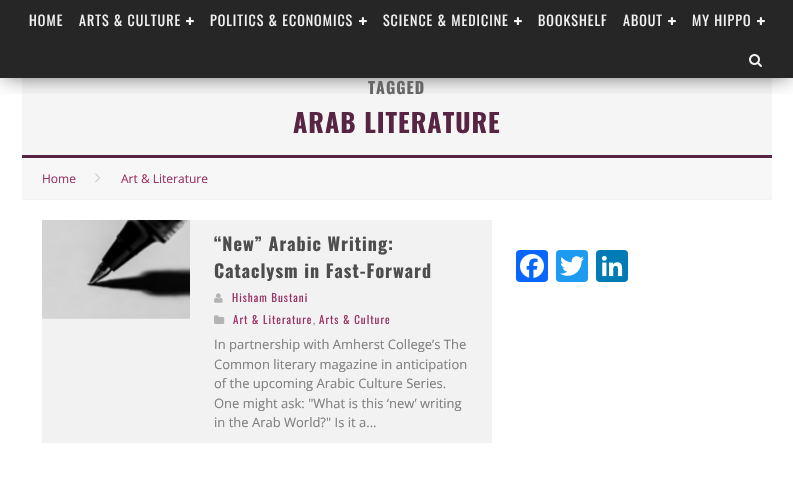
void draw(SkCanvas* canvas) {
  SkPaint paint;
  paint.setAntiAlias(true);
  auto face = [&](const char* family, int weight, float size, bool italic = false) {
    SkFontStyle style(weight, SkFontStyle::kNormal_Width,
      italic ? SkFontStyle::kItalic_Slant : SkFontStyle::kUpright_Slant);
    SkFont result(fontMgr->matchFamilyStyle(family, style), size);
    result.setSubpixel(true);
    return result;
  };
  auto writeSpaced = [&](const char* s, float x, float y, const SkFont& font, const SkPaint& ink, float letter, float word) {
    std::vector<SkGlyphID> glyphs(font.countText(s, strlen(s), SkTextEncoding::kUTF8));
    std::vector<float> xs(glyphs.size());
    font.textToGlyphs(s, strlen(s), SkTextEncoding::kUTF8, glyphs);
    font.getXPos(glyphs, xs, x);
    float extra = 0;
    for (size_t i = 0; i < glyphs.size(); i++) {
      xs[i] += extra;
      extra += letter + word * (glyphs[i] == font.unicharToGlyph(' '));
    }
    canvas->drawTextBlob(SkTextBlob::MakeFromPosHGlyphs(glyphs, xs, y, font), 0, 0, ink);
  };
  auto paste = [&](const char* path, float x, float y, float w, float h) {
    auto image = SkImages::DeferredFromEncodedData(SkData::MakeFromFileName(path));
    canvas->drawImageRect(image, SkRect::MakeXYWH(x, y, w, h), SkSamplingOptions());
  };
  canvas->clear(0xffffffff);
  paint.setColor(0xff262626);
  canvas->drawRect(SkRect::MakeXYWH(0, 0, 793, 78), paint);
  paint.setColor(0xfff5f5f5);
  canvas->drawRect(SkRect::MakeXYWH(22, 78, 750, 77), paint);
  canvas->save();
  canvas->clipRect(SkRect::MakeXYWH(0, 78, 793, 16));
  paint.setColor(0x99000000);
  paint.setMaskFilter(SkMaskFilter::MakeBlur(kNormal_SkBlurStyle, 10));
  canvas->drawRect(SkRect::MakeXYWH(5, 8, 783, 68), paint);
  paint.setMaskFilter(nullptr);
  canvas->restore();
  paste("img/1.png", 186, 17, 8, 8);
  paste("img/1.png", 359, 17, 8, 8);
  paste("img/1.png", 514, 17, 8, 8);
  paste("img/1.png", 668, 17, 8, 8);
  paste("img/1.png", 757, 17, 8, 8);
  paste("img/2.png", 749, 54, 13, 13);
  {
    const struct { float x, y, w, h; SkColor color; } items[] = {
      {22, 155, 750, 3, 0xff572443},
      {22, 158, 750, 41, 0xfff7f7f7},
      {22, 199, 750, 1, 0xfff3f3f3},
    };
    for (auto [x, y, w, h, color] : items) {
      paint.setColor(color);
      canvas->drawRect(SkRect::MakeXYWH(x, y, w, h), paint);
    }
  }
  paste("img/3.png", 95, 173, 6, 10);
  paint.setColor(0xfff2f2f2);
  canvas->drawRect(SkRect::MakeXYWH(42, 220, 450, 223), paint);
  paste("img/4.png", 42, 220, 148, 99);
  paste("img/5.png", 214, 293, 9, 10);
  paste("img/6.png", 214, 315, 11, 9);
  paint.setColor(0xff0866ff);
  canvas->drawRoundRect(SkRect::MakeXYWH(516, 250, 32, 32), 4, 4, paint);
  paste("img/7.png", 520, 254, 24, 24);
  paint.setColor(0xff1d9bf0);
  canvas->drawRoundRect(SkRect::MakeXYWH(556, 250, 32, 32), 4, 4, paint);
  paste("img/8.png", 560, 256, 24, 20);
  paint.setColor(0xff007bb5);
  canvas->drawRoundRect(SkRect::MakeXYWH(596, 250, 32, 32), 4, 4, paint);
  paste("img/9.png", 601, 255, 22, 22);
  auto f0 = face("Oswald", 400, 14);
  paint.setColor(0xfff2f2f2);
  {
    const struct { const char* s; float x, y; } items[] = {
      {"HOME", 29, 26},
      {"ARTS & CULTURE", 79, 26},
      {"POLITICS & ECONOMICS", 210, 26},
      {"SCIENCE & MEDICINE", 383, 26},
      {"BOOKSHELF", 538, 26},
      {"ABOUT", 623, 26},
      {"MY HIPPO", 692, 26},
    };
    for (auto [s, x, y] : items) {
      writeSpaced(s, x, y, f0, paint, 1, 0);
    }
  }
  auto f1 = face("Oswald", 700, 16);
  paint.setColor(0xff666666);
  writeSpaced("TAGGED", 368, 94, f1, paint, 1, 0);
  auto f2 = face("Oswald", 700, 26);
  paint.setColor(0xff572443);
  writeSpaced("ARAB LITERATURE", 293, 133, f2, paint, 1, 0);
  auto f3 = face("Open Sans", 400, 12);
  paint.setColor(0xff993366);
  canvas->drawString("Home", 42, 183, f3, paint);
  canvas->drawString("Art & Literature", 121, 183, f3, paint);
  auto f4 = face("Oswald", 700, 18);
  paint.setColor(0xff4d4d4d);
  writeSpaced("“New” Arabic Writing:", 214, 251, f4, paint, 1, 0);
  writeSpaced("Cataclysm in Fast-Forward", 214, 278, f4, paint, 1, 0);
  auto f5 = face("Oswald", 400, 11);
  paint.setColor(0xff993366);
  writeSpaced("Hisham Bustani", 232, 302, f5, paint, 1, 0);
  writeSpaced("Art & Literature", 233, 324, f5, paint, 1, 0);
  paint.setColor(0xff999999);
  writeSpaced(",", 313, 324, f5, paint, 1, 0);
  paint.setColor(0xff993366);
  writeSpaced("Arts & Culture", 319, 324, f5, paint, 1, 0);
  auto f6 = face("Open Sans", 400, 13);
  paint.setColor(0xff808080);
  {
    const struct { const char* s; float x, y; } items[] = {
      {"In partnership with Amherst College’s The", 214, 349},
      {"Common literary magazine in anticipation", 214, 369},
      {"of the upcoming Arabic Culture Series.", 214, 388},
      {"One might ask: \"What is this ‘new’ writing", 214, 408},
      {"in the Arab World?\" Is it a...", 214, 427},
    };
    for (auto [s, x, y] : items) {
      canvas->drawString(s, x, y, f6, paint);
    }
  }
}
